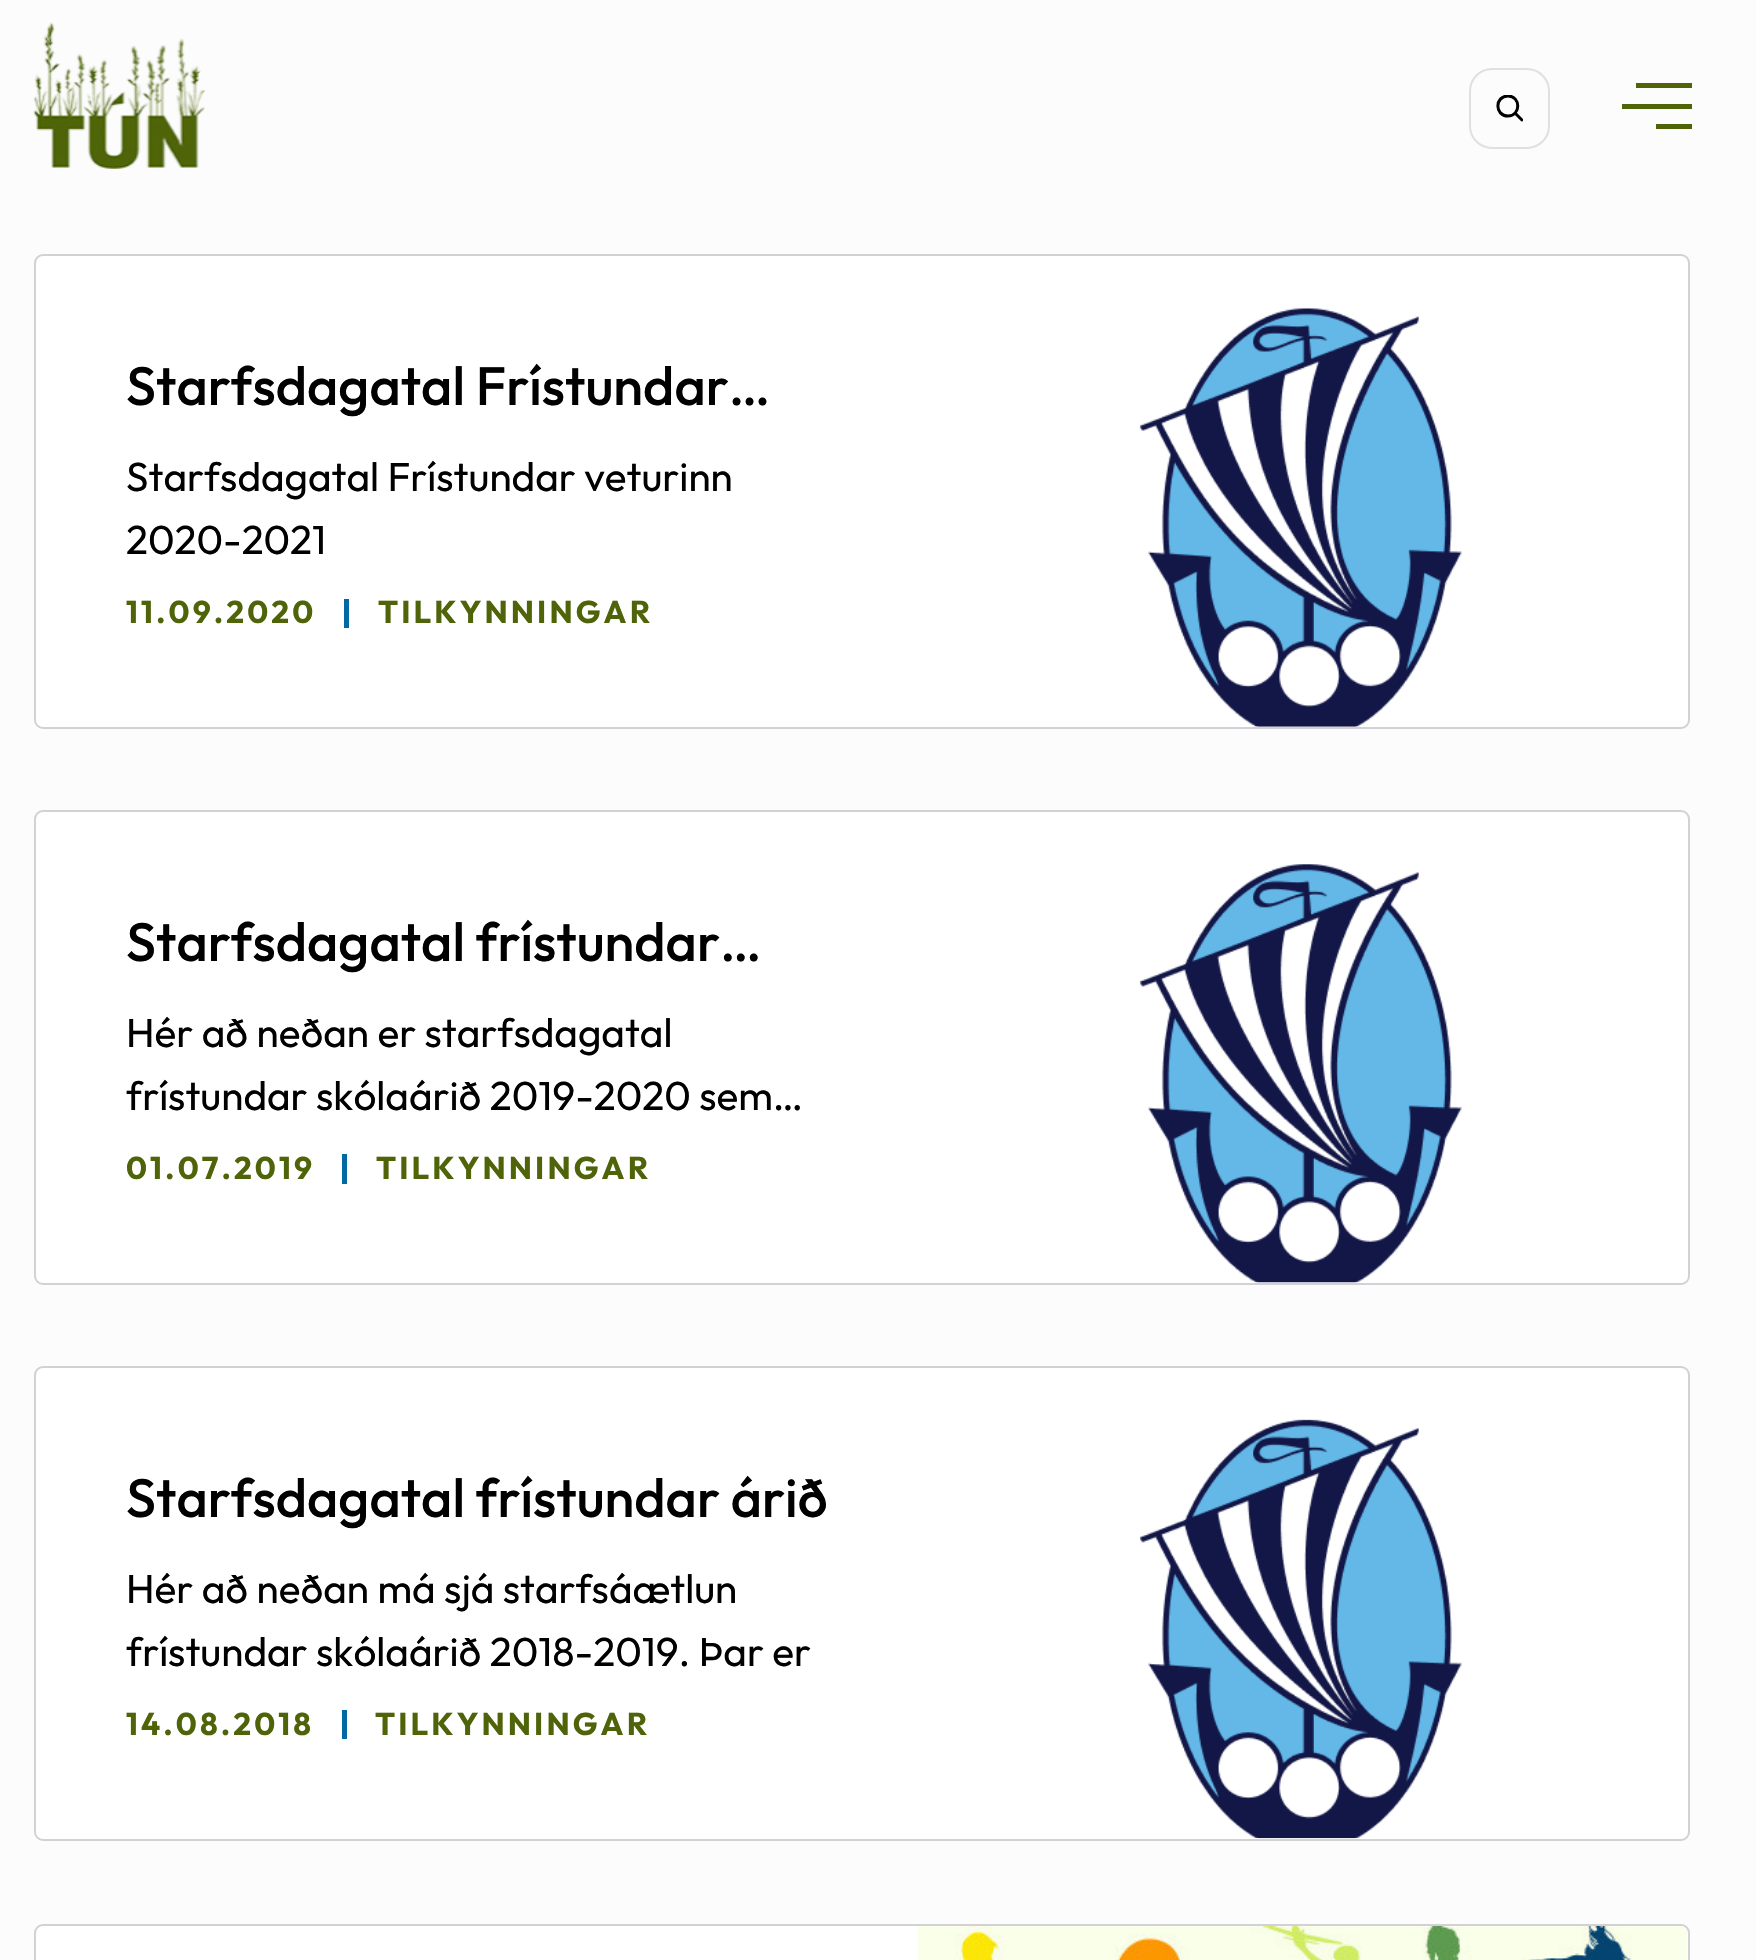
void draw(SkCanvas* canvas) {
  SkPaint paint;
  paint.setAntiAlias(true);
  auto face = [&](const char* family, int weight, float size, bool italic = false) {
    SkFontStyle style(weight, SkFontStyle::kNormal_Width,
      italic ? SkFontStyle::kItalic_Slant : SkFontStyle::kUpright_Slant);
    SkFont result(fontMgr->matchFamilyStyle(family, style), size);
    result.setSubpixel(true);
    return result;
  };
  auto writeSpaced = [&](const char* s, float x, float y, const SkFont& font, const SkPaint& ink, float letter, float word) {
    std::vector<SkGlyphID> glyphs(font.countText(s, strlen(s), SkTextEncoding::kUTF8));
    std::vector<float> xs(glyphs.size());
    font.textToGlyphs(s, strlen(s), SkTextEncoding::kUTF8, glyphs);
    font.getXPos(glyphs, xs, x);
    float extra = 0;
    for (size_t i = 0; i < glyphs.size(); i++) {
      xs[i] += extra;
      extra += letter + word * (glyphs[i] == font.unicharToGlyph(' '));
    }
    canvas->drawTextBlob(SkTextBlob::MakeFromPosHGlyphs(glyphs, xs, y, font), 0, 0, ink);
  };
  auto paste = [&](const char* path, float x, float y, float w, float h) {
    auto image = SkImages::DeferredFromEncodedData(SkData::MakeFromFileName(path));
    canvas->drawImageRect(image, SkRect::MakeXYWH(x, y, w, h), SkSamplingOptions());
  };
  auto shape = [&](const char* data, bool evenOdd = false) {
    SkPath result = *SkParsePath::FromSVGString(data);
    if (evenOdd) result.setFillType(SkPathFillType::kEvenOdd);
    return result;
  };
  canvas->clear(0xfffcfcfc);
  paste("img/1.png", 33, 22, 172, 147);
  paint.setStroke(true);
  paint.setStrokeWidth(2);
  paint.setColor(0xffe0e0e0);
  canvas->drawRoundRect(SkRect::MakeXYWH(1470, 69, 79, 79), 22, 22, paint);
  canvas->save();
  canvas->clipRect(SkRect::MakeXYWH(1496, 95, 27, 27));
  paint.setStrokeWidth(3);
  paint.setStrokeCap(SkPaint::kRound_Cap);
  paint.setStrokeJoin(SkPaint::kRound_Join);
  paint.setColor(0xff000000);
  canvas->drawPath(shape("M1508 116C1521 116 1521 96 1508 96C1494.5 96 1494.5 116 1508 116ZM1522 120L1515 113"), paint);
  canvas->restore();
  paint.setStroke(false);
  {
    const struct { float x, y, w, h; SkColor color; } items[] = {
      {1636, 83, 56, 5, 0xff4f6409},
      {1622, 104, 70, 5, 0xff4f6409},
      {1656, 124, 36, 5, 0xff4f6409},
    };
    for (auto [x, y, w, h, color] : items) {
      paint.setColor(color);
      canvas->drawRect(SkRect::MakeXYWH(x, y, w, h), paint);
    }
  }
  paint.setColor(0xffffffff);
  canvas->drawRoundRect(SkRect::MakeXYWH(35, 255, 1654, 473), 8, 8, paint);
  paint.setStroke(true);
  paint.setStrokeWidth(2);
  paint.setStrokeCap(SkPaint::kButt_Cap);
  paint.setStrokeJoin(SkPaint::kMiter_Join);
  paint.setColor(0xffd1d1d6);
  canvas->drawRoundRect(SkRect::MakeXYWH(35, 255, 1654, 473), 8, 8, paint);
  paint.setStroke(false);
  paint.setColor(0xff0068a3);
  canvas->drawRect(SkRect::MakeXYWH(344, 599, 5, 29), paint);
  paste("img/2.png", 1139, 308, 323, 419);
  paint.setColor(0xffffffff);
  canvas->drawRoundRect(SkRect::MakeXYWH(35, 811, 1654, 473), 8, 8, paint);
  paint.setStroke(true);
  paint.setColor(0xffd1d1d6);
  canvas->drawRoundRect(SkRect::MakeXYWH(35, 811, 1654, 473), 8, 8, paint);
  paint.setStroke(false);
  paint.setColor(0xff0068a3);
  canvas->drawRect(SkRect::MakeXYWH(342, 1154, 5, 30), paint);
  paste("img/3.png", 1139, 864, 323, 419);
  paint.setColor(0xffffffff);
  canvas->drawRoundRect(SkRect::MakeXYWH(35, 1367, 1654, 473), 8, 8, paint);
  paint.setStroke(true);
  paint.setColor(0xffd1d1d6);
  canvas->drawRoundRect(SkRect::MakeXYWH(35, 1367, 1654, 473), 8, 8, paint);
  paint.setStroke(false);
  paint.setColor(0xff0068a3);
  canvas->drawRect(SkRect::MakeXYWH(342, 1710, 5, 29), paint);
  paste("img/4.png", 1139, 1419, 323, 420);
  paint.setColor(0xffffffff);
  canvas->drawRoundRect(SkRect::MakeXYWH(35, 1925, 1654, 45), 8, 8, paint);
  paint.setStroke(true);
  paint.setColor(0xffd1d1d6);
  canvas->drawRoundRect(SkRect::MakeXYWH(35, 1925, 1654, 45), 8, 8, paint);
  paste("img/5.png", 918, 1926, 769, 34);
  auto f0 = face("Outfit", 500, 54);
  paint.setStroke(false);
  paint.setColor(0xff000000);
  canvas->drawString("Starfsdagatal Frístundar…", 126, 405, f0, paint);
  auto f1 = face("Outfit", 400, 40.5f);
  canvas->drawString("Starfsdagatal Frístundar veturinn", 126, 491, f1, paint);
  canvas->drawString("2020-2021", 126, 554, f1, paint);
  auto f2 = face("Outfit", 700, 31.5f);
  paint.setColor(0xff4f6409);
  writeSpaced("11.09.2020", 126, 623, f2, paint, 3.1f, 0);
  writeSpaced("TILKYNNINGAR", 378, 623, f2, paint, 3.1f, 0);
  paint.setColor(0xff000000);
  canvas->drawString("Starfsdagatal frístundar…", 126, 961, f0, paint);
  canvas->drawString("Hér að neðan er starfsdagatal", 126, 1047, f1, paint);
  canvas->drawString("frístundar skólaárið 2019-2020 sem…", 126, 1110, f1, paint);
  paint.setColor(0xff4f6409);
  writeSpaced("01.07.2019", 126, 1179, f2, paint, 3.1f, 0);
  writeSpaced("TILKYNNINGAR", 376, 1179, f2, paint, 3.1f, 0);
  paint.setColor(0xff000000);
  canvas->drawString("Starfsdagatal frístundar árið", 126, 1517, f0, paint);
  canvas->drawString("Hér að neðan má sjá starfsáætlun", 126, 1603, f1, paint);
  canvas->drawString("frístundar skólaárið 2018-2019. Þar er", 126, 1666, f1, paint);
  paint.setColor(0xff4f6409);
  writeSpaced("14.08.2018", 126, 1735, f2, paint, 3.1f, 0);
  writeSpaced("TILKYNNINGAR", 375, 1735, f2, paint, 3.1f, 0);
}
